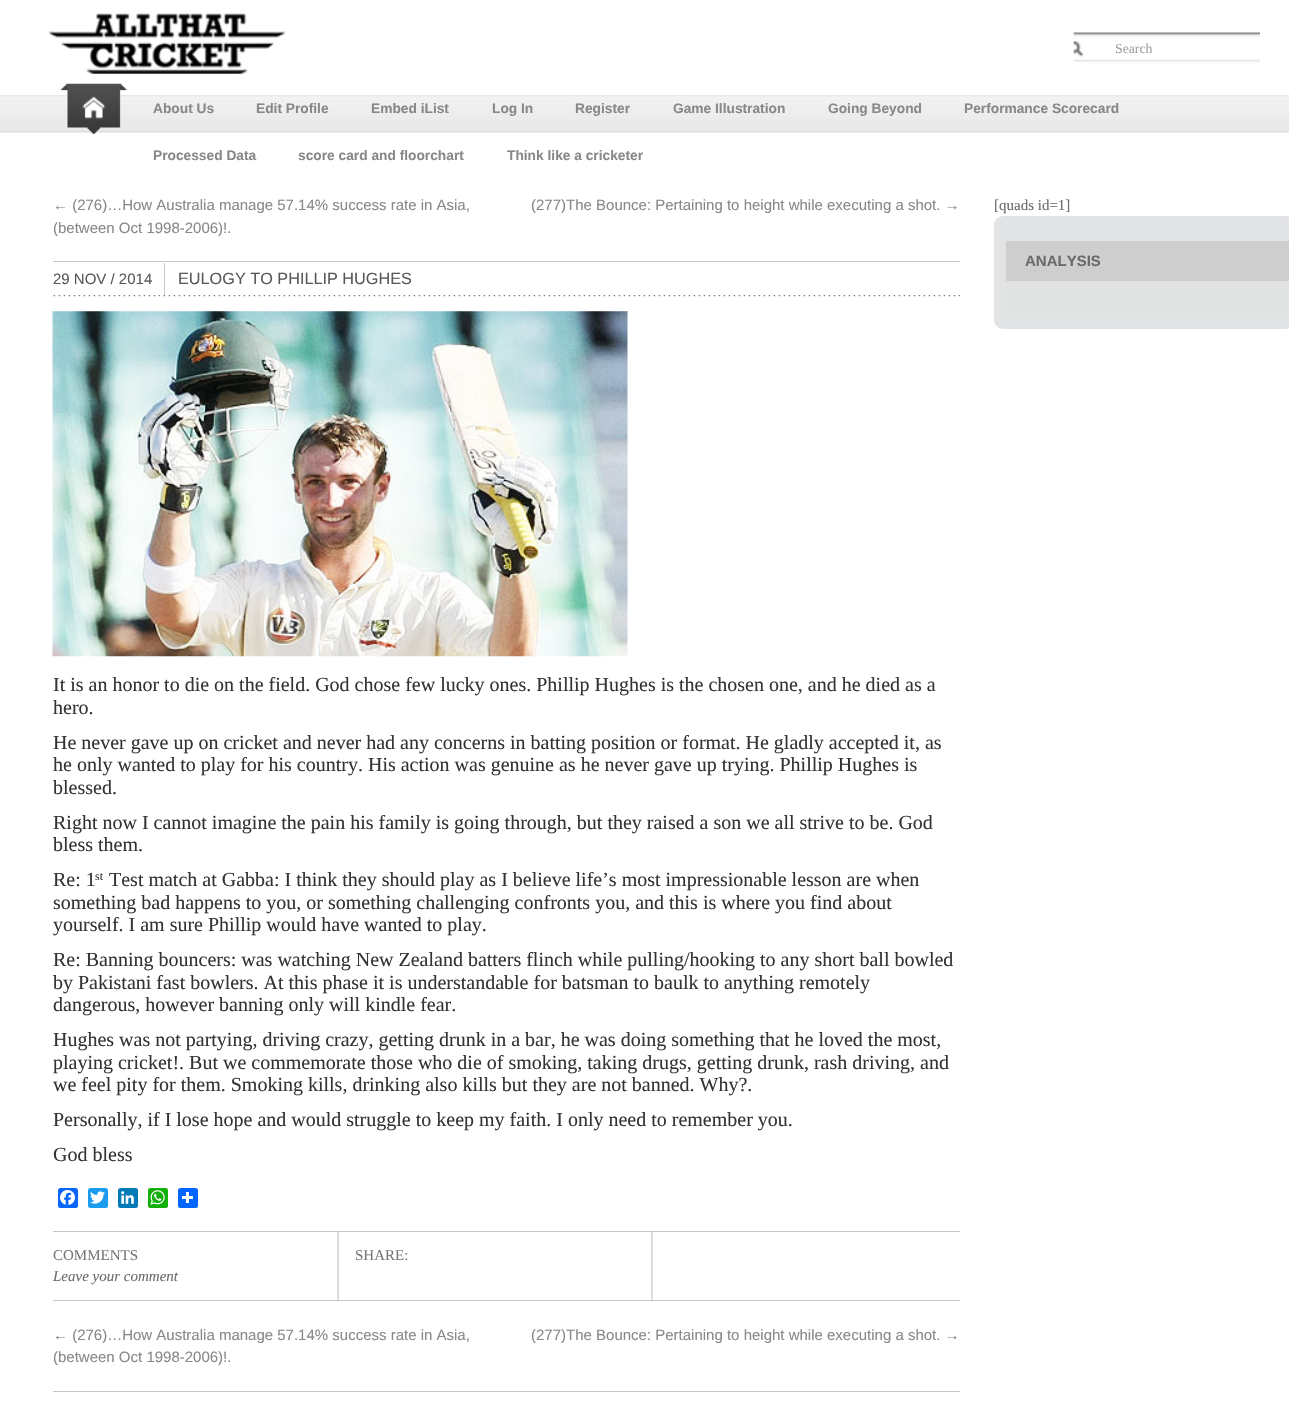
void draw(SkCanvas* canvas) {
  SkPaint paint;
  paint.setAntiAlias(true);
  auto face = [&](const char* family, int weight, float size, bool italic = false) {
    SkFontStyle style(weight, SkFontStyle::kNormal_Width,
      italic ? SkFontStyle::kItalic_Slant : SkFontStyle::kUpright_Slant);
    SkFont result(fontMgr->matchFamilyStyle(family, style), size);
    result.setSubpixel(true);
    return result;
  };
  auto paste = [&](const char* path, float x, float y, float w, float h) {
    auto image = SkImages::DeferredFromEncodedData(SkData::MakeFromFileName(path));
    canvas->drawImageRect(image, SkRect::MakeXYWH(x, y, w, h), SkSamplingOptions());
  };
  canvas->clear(0xffffffff);
  paste("img/1.png", 0, 95, 1289, 38);
  paste("img/2.png", 48, 13, 238, 61);
  paint.setColor(0xfff9f9f9);
  canvas->drawRect(SkRect::MakeXYWH(1074, 61, 186, 2), paint);
  paste("img/3.png", 1073, 32, 187, 30);
  paste("img/4.png", 61, 83, 66, 51);
  paste("img/5.png", 53, 295, 907, 2);
  paint.setColor(0xffc5c7ca);
  canvas->drawRect(SkRect::MakeXYWH(53, 261, 907, 1), paint);
  canvas->drawRect(SkRect::MakeXYWH(164, 263, 1, 32), paint);
  paste("img/6.png", 52, 311, 576, 346);
  paint.setColor(0xff0866ff);
  canvas->drawRoundRect(SkRect::MakeXYWH(58, 1188, 20, 20), 2.5f, 2.5f, paint);
  paste("img/7.png", 60, 1190, 15, 15);
  paint.setColor(0xff1d9bf0);
  canvas->drawRoundRect(SkRect::MakeXYWH(88, 1188, 20, 20), 2.5f, 2.5f, paint);
  paste("img/8.png", 90, 1191, 15, 13);
  paint.setColor(0xff007bb5);
  canvas->drawRoundRect(SkRect::MakeXYWH(118, 1188, 20, 20), 2.5f, 2.5f, paint);
  paste("img/9.png", 121, 1191, 13, 13);
  paint.setColor(0xff12af0a);
  canvas->drawRoundRect(SkRect::MakeXYWH(148, 1188, 20, 20), 2.5f, 2.5f, paint);
  paste("img/10.png", 150, 1190, 15, 15);
  paint.setColor(0xff0166ff);
  canvas->drawRoundRect(SkRect::MakeXYWH(178, 1188, 20, 20), 2.5f, 2.5f, paint);
  paint.setColor(0xffffffff);
  canvas->drawRect(SkRect::MakeXYWH(186, 1192, 3, 11), paint);
  canvas->drawRect(SkRect::MakeXYWH(182, 1196, 11, 3), paint);
  paste("img/11.png", 337, 1232, 316, 70);
  {
    const struct { float x, y, w, h; SkColor color; } items[] = {
      {53, 1231, 907, 1, 0xffc5c7ca},
      {53, 1300, 907, 1, 0xffc5c7ca},
      {53, 1391, 907, 1, 0xffc5c7ca},
    };
    for (auto [x, y, w, h, color] : items) {
      paint.setColor(color);
      canvas->drawRect(SkRect::MakeXYWH(x, y, w, h), paint);
    }
  }
  paint.setColor(0xffe2e3e5);
  canvas->drawRoundRect(SkRect::MakeXYWH(994, 216, 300, 113), 9, 9, paint);
  paint.setColor(0xffe1e3e2);
  canvas->drawRect(SkRect::MakeXYWH(1006, 281, 283, 35), paint);
  paint.setColor(0xffcecece);
  canvas->drawRect(SkRect::MakeXYWH(1006, 241, 283, 40), paint);
  auto f0 = face("Liberation Serif", 400, 13.75f);
  paint.setColor(0xffa1a1a1);
  canvas->drawString("Search", 1115, 53, f0, paint);
  auto f1 = face("Liberation Sans", 700, 13.75f);
  paint.setColor(0xff888888);
  {
    const struct { const char* s; float x, y; } items[] = {
      {"About Us", 153, 113},
      {"Edit Profile", 256, 113},
      {"Embed iList", 371, 113},
      {"Log In", 492, 113},
      {"Register", 575, 113},
      {"Game Illustration", 673, 113},
      {"Going Beyond", 828, 113},
      {"Performance Scorecard", 964, 113},
      {"Processed Data", 153, 160},
      {"score card and floorchart", 298, 160},
      {"Think like a cricketer", 507, 160},
    };
    for (auto [s, x, y] : items) {
      canvas->drawString(s, x, y, f1, paint);
    }
  }
  auto f2 = face("Liberation Sans", 400, 15);
  {
    const struct { const char* s; float x, y; } items[] = {
      {"← (276)…How Australia manage 57.14% success rate in Asia,", 53, 210},
      {"(between Oct 1998-2006)!.", 53, 233},
      {"(277)The Bounce: Pertaining to height while executing a shot. →", 531, 210},
    };
    for (auto [s, x, y] : items) {
      canvas->drawString(s, x, y, f2, paint);
    }
  }
  paint.setColor(0xff595858);
  canvas->drawString("29 NOV / 2014", 53, 284, f2, paint);
  auto f3 = face("Liberation Sans", 400, 16.25f);
  canvas->drawString("EULOGY TO PHILLIP HUGHES", 178, 284, f3, paint);
  auto f4 = face("Liberation Serif", 400, 20);
  paint.setColor(0xff333333);
  {
    const struct { const char* s; float x, y; } items[] = {
      {"It is an honor to die on the field. God chose few lucky ones. Phillip Hughes is the chosen one, and he died as a", 53, 691},
      {"hero.", 53, 714},
      {"He never gave up on cricket and never had any concerns in batting position or format. He gladly accepted it, as", 53, 749},
      {"he only wanted to play for his country. His action was genuine as he never gave up trying. Phillip Hughes is", 53, 771},
      {"blessed.", 53, 794},
      {"Right now I cannot imagine the pain his family is going through, but they raised a son we all strive to be. God", 53, 829},
      {"bless them.", 53, 851},
      {"Re: 1", 53, 886},
    };
    for (auto [s, x, y] : items) {
      canvas->drawString(s, x, y, f4, paint);
    }
  }
  auto f5 = face("Liberation Serif", 400, 12);
  canvas->drawString("st", 95, 880, f5, paint);
  {
    const struct { const char* s; float x, y; } items[] = {
      {"Test match at Gabba: I think they should play as I believe life’s most impressionable lesson are when", 109, 886},
      {"something bad happens to you, or something challenging confronts you, and this is where you find about", 53, 909},
      {"yourself. I am sure Phillip would have wanted to play.", 53, 931},
      {"Re: Banning bouncers: was watching New Zealand batters flinch while pulling/hooking to any short ball bowled", 53, 966},
      {"by Pakistani fast bowlers. At this phase it is understandable for batsman to baulk to anything remotely", 53, 989},
      {"dangerous, however banning only will kindle fear.", 53, 1011},
      {"Hughes was not partying, driving crazy, getting drunk in a bar, he was doing something that he loved the most,", 53, 1046},
      {"playing cricket!. But we commemorate those who die of smoking, taking drugs, getting drunk, rash driving, and", 53, 1069},
      {"we feel pity for them. Smoking kills, drinking also kills but they are not banned. Why?.", 53, 1091},
      {"Personally, if I lose hope and would struggle to keep my faith. I only need to remember you.", 53, 1126},
      {"God bless", 53, 1161},
    };
    for (auto [s, x, y] : items) {
      canvas->drawString(s, x, y, f4, paint);
    }
  }
  auto f6 = face("Liberation Serif", 400, 15);
  paint.setColor(0xff777777);
  canvas->drawString("COMMENTS", 53, 1260, f6, paint);
  auto f7 = face("Liberation Serif", 400, 15, true);
  paint.setColor(0xff6a6a6a);
  canvas->drawString("Leave your comment", 53, 1281, f7, paint);
  paint.setColor(0xff777777);
  canvas->drawString("SHARE:", 355, 1260, f6, paint);
  paint.setColor(0xff888888);
  {
    const struct { const char* s; float x, y; } items[] = {
      {"← (276)…How Australia manage 57.14% success rate in Asia,", 53, 1340},
      {"(between Oct 1998-2006)!.", 53, 1362},
      {"(277)The Bounce: Pertaining to height while executing a shot. →", 531, 1340},
    };
    for (auto [s, x, y] : items) {
      canvas->drawString(s, x, y, f2, paint);
    }
  }
  paint.setColor(0xff6a6a6a);
  canvas->drawString("[quads id=1]", 994, 210, f6, paint);
  auto f8 = face("Liberation Sans", 700, 15);
  canvas->drawString("ANALYSIS", 1025, 266, f8, paint);
}
